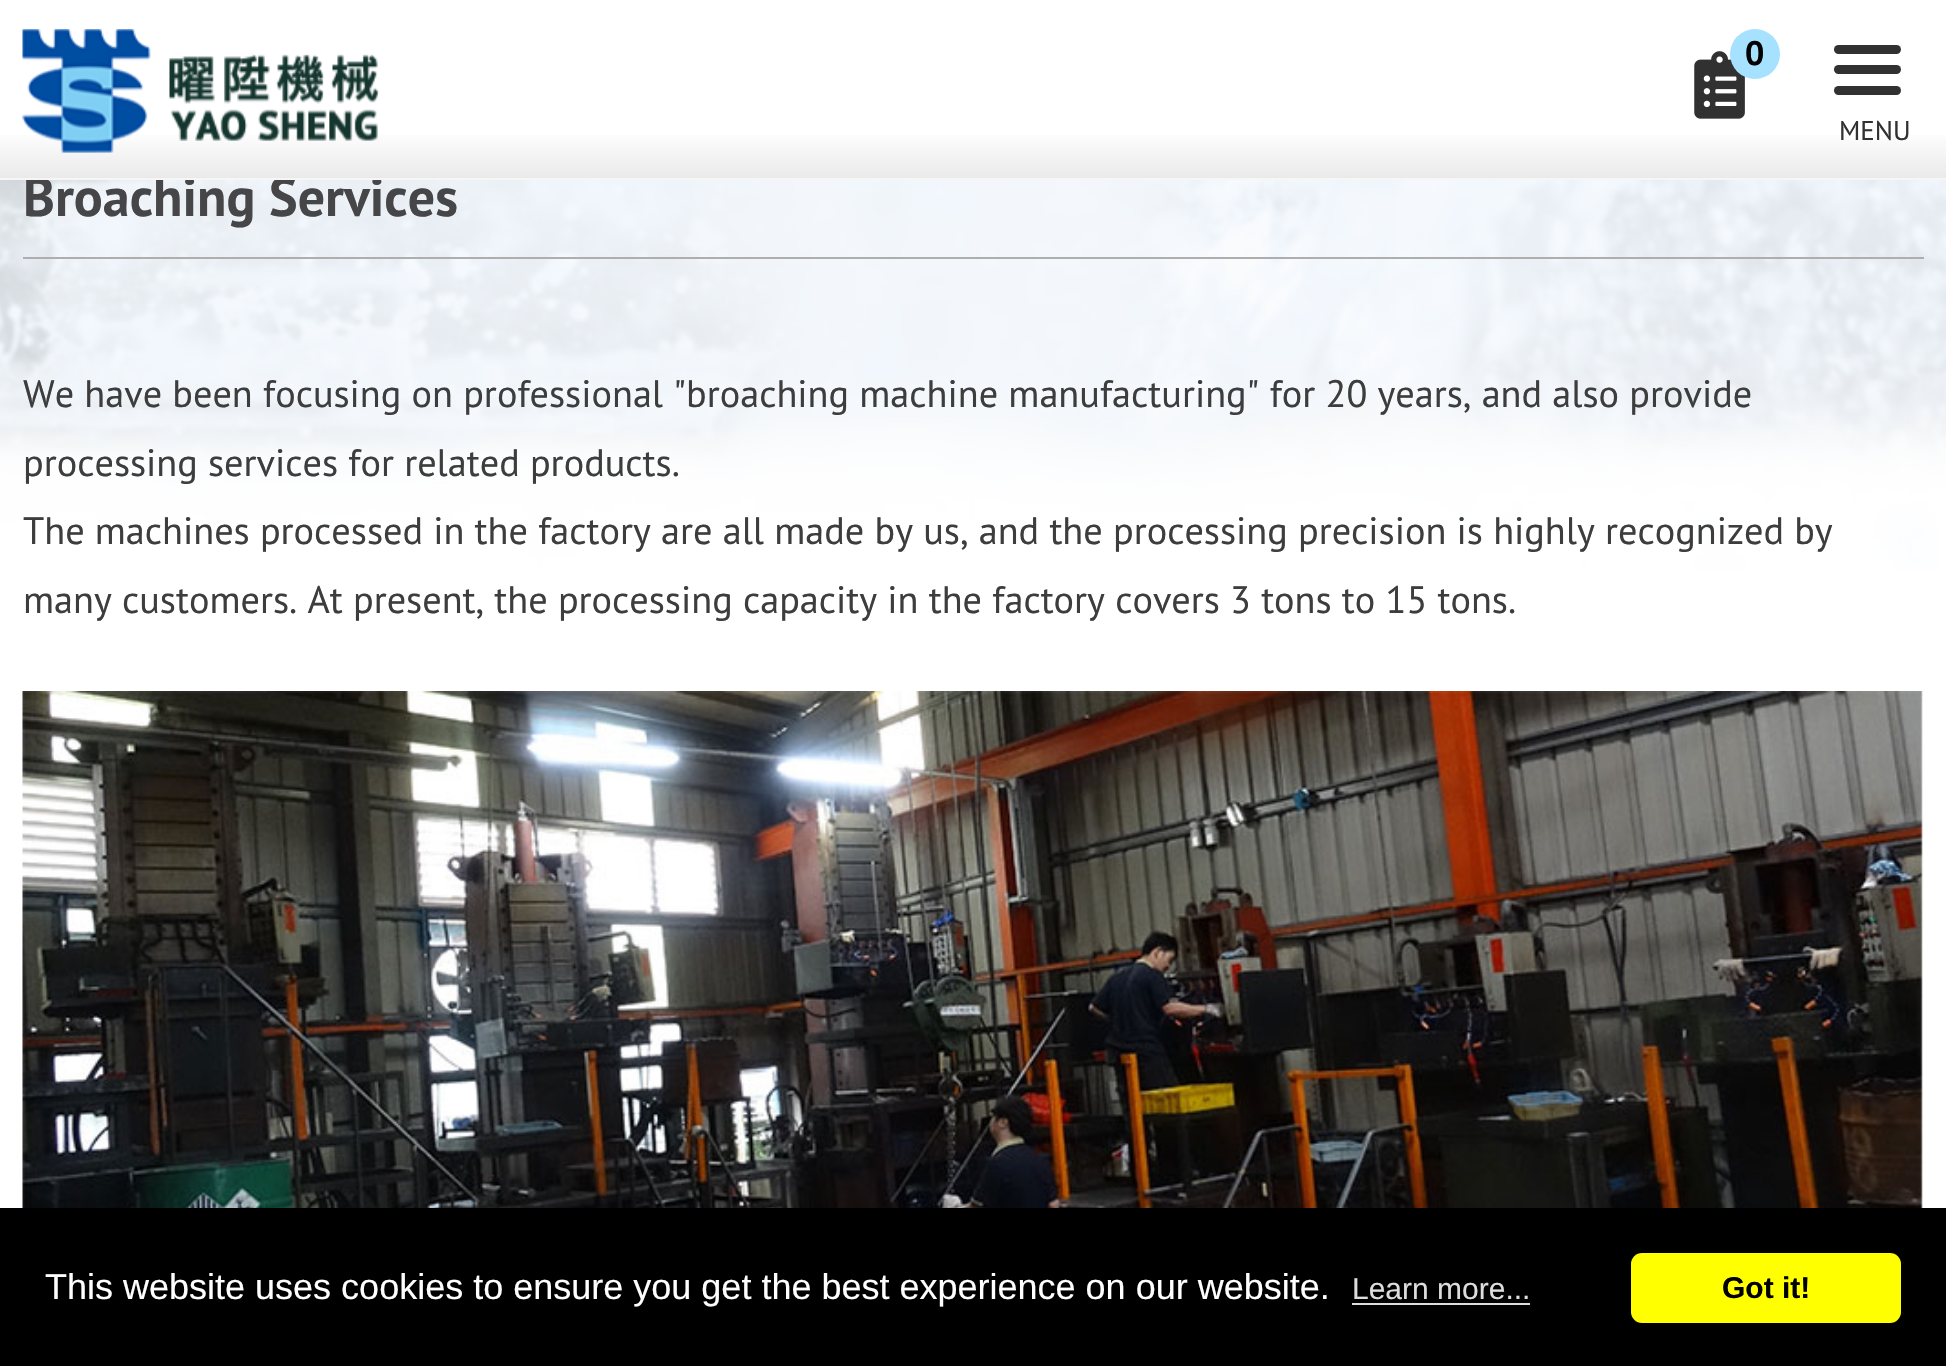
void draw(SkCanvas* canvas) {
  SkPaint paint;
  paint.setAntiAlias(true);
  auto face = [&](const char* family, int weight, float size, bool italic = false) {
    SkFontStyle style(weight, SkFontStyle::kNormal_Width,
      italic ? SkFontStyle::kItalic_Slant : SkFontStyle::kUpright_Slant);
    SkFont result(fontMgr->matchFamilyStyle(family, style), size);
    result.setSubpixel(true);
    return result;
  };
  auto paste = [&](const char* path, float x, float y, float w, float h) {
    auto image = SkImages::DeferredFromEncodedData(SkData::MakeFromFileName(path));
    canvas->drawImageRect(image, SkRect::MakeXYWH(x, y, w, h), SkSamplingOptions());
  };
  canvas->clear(0xffffffff);
  paste("img/1.png", 0, 180, 1946, 390);
  paste("img/3.png", 1694, 51, 51, 68);
  paint.setColor(0xffa6e2ff);
  canvas->drawCircle(1755, 54, 25, paint);
  paint.setColor(0xff313131);
  canvas->drawRoundRect(SkRect::MakeXYWH(1834, 45, 67, 9), 4.5f, 4.5f, paint);
  canvas->drawRoundRect(SkRect::MakeXYWH(1834, 65, 67, 9), 4.5f, 4.5f, paint);
  canvas->drawRoundRect(SkRect::MakeXYWH(1834, 86, 67, 9), 4.5f, 4.5f, paint);
  paint.setColor(0xffaeaeae);
  canvas->drawRect(SkRect::MakeXYWH(23, 257, 1901, 2), paint);
  paste("img/4.png", 22, 691, 1902, 517);
  paint.setColor(0xff000000);
  canvas->drawRect(SkRect::MakeXYWH(0, 1208, 1946, 158), paint);
  paint.setColor(0xffdddddd);
  canvas->drawRect(SkRect::MakeXYWH(1352, 1303, 178, 2), paint);
  paint.setColor(0xffffff00);
  canvas->drawRoundRect(SkRect::MakeXYWH(1631, 1253, 270, 70), 11, 11, paint);
  auto f0 = face("PT Sans", 700, 34);
  paint.setColor(0xff000000);
  canvas->drawString("0", 1745, 65, f0, paint);
  auto f1 = face("PT Sans", 700, 54);
  paint.setColor(0xff464648);
  canvas->drawString("Broaching Services", 23, 216, f1, paint);
  {
    const SkColor colors[] = {0xffe9e9e9, 0xffffffff};
    const float stops[] = {0, 0.28f};
    const SkPoint ends[] = {{973, 180}, {973, 0}};
    paint.setShader(SkGradientShader::MakeLinear(ends, colors, stops, 2, SkTileMode::kClamp));
    paint.setAlpha(255);
  }
  canvas->drawRect(SkRect::MakeXYWH(0, 135, 1946, 43), paint);
  paste("img/2.png", 22, 29, 358, 124);
  paint.setShader(nullptr);
  paint.setColor(0xfff6f6f6);
  canvas->drawRect(SkRect::MakeXYWH(0, 178, 1946, 2), paint);
  auto f2 = face("PT Sans", 400, 27);
  paint.setColor(0xff313131);
  canvas->drawString("MENU", 1839, 140, f2, paint);
  auto f3 = face("PT Sans", 400, 38.25f);
  paint.setColor(0xff3d3d3d);
  {
    const struct { const char* s; float x, y; } items[] = {
      {"We have been focusing on professional \"broaching machine manufacturing\" for 20 years, and also provide", 23, 407},
      {"processing services for related products.", 23, 476},
      {"The machines processed in the factory are all made by us, and the processing precision is highly recognized by", 23, 544},
      {"many customers. At present, the processing capacity in the factory covers 3 tons to 15 tons.", 23, 613},
    };
    for (auto [s, x, y] : items) {
      canvas->drawString(s, x, y, f3, paint);
    }
  }
  auto f4 = face("Liberation Sans", 400, 36);
  paint.setColor(0xffffffff);
  canvas->drawString("This website uses cookies to ensure you get the best experience on our website.", 45, 1299, f4, paint);
  auto f5 = face("Liberation Sans", 400, 30);
  paint.setColor(0xffdddddd);
  canvas->drawString("Learn more...", 1352, 1299, f5, paint);
  auto f6 = face("Liberation Sans", 700, 30);
  paint.setColor(0xff000000);
  canvas->drawString("Got it!", 1722, 1298, f6, paint);
}
